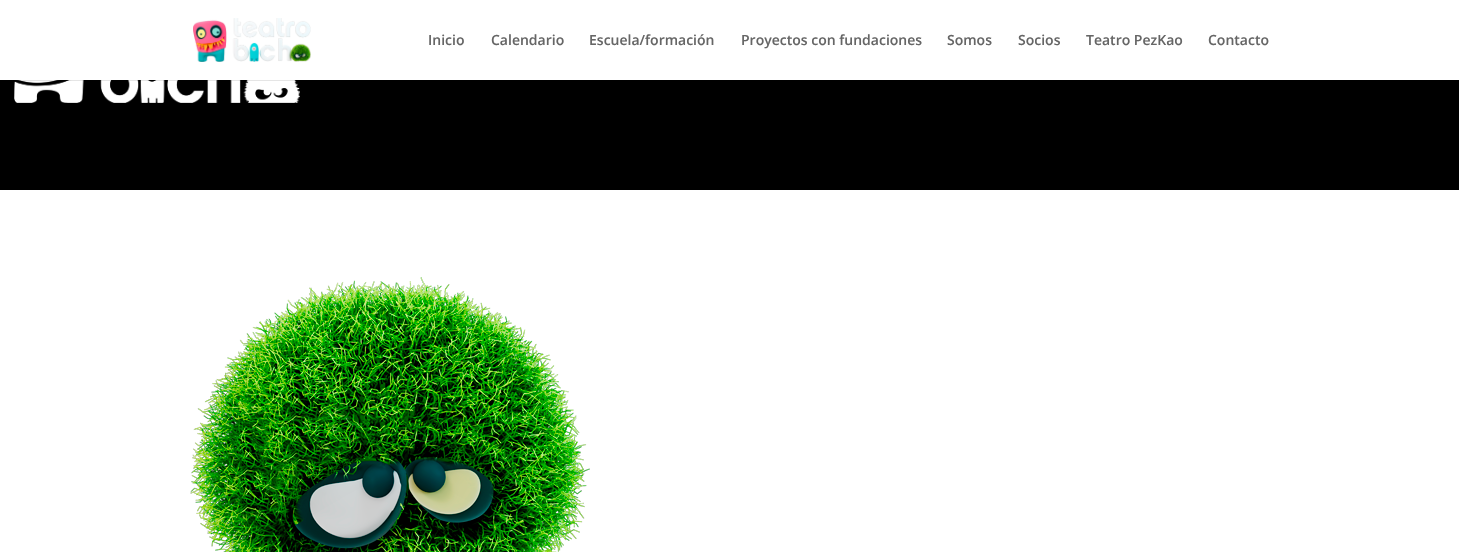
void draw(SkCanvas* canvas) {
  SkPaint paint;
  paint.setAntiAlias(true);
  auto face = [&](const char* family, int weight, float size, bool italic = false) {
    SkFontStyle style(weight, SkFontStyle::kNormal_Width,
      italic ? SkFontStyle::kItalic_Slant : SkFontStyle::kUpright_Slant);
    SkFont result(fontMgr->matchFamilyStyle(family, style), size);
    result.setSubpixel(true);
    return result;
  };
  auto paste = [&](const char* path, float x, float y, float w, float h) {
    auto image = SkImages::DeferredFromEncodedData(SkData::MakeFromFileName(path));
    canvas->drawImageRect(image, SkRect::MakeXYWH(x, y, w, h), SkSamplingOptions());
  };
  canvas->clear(0xff000000);
  paste("img/3.png", 14, 80, 286, 23);
  paint.setColor(0x1a000000);
  canvas->drawRect(SkRect::MakeXYWH(18, 80, 278, 1), paint);
  paint.setColor(0xffffffff);
  canvas->drawRect(SkRect::MakeXYWH(0, 0, 1459, 80), paint);
  paste("img/1.png", 193, 18, 118, 44);
  canvas->drawRect(SkRect::MakeXYWH(0, 190, 1459, 362), paint);
  paste("img/2.png", 190, 277, 400, 275);
  auto f0 = face("Open Sans", 600, 14);
  paint.setColor(0xff666666);
  {
    const struct { const char* s; float x, y; } items[] = {
      {"Inicio", 428, 45},
      {"Calendario", 491, 45},
      {"Escuela/formación", 589, 45},
      {"Proyectos con fundaciones", 741, 45},
      {"Somos", 947, 45},
      {"Socios", 1018, 45},
      {"Teatro PezKao", 1086, 45},
      {"Contacto", 1208, 45},
    };
    for (auto [s, x, y] : items) {
      canvas->drawString(s, x, y, f0, paint);
    }
  }
}
